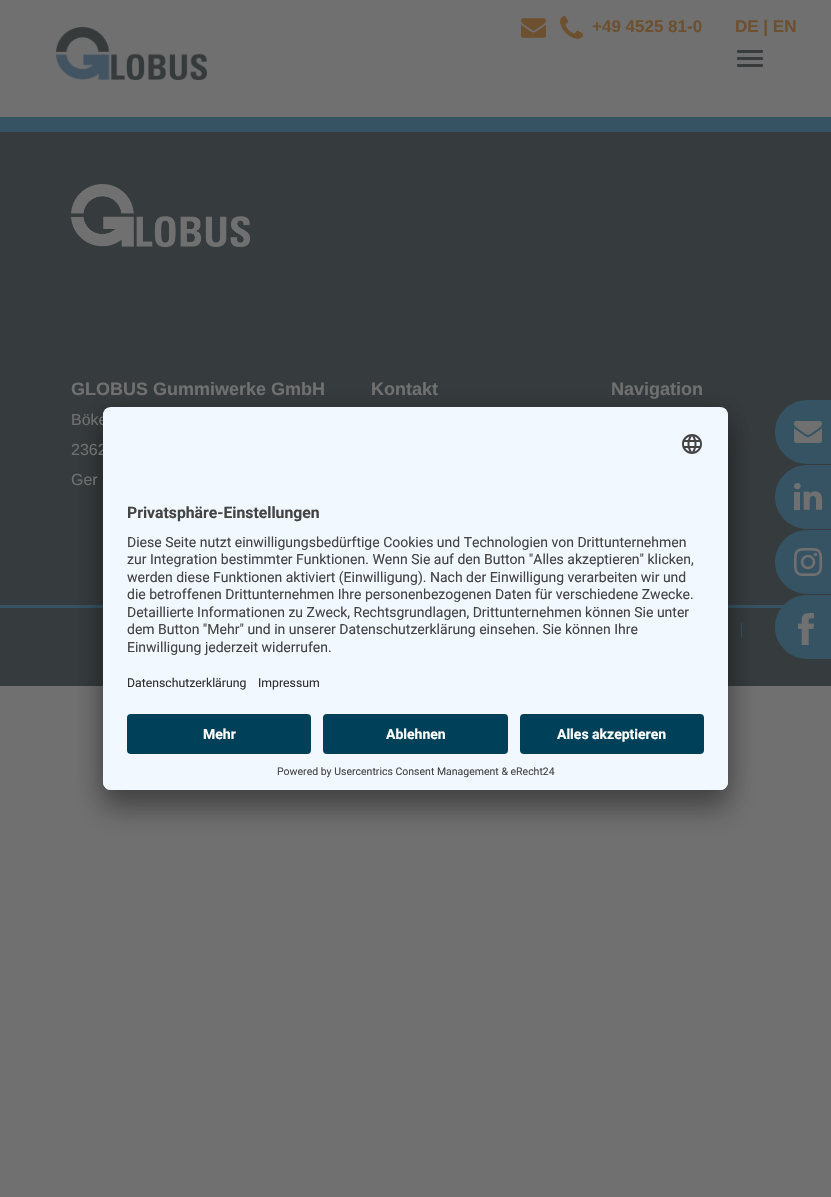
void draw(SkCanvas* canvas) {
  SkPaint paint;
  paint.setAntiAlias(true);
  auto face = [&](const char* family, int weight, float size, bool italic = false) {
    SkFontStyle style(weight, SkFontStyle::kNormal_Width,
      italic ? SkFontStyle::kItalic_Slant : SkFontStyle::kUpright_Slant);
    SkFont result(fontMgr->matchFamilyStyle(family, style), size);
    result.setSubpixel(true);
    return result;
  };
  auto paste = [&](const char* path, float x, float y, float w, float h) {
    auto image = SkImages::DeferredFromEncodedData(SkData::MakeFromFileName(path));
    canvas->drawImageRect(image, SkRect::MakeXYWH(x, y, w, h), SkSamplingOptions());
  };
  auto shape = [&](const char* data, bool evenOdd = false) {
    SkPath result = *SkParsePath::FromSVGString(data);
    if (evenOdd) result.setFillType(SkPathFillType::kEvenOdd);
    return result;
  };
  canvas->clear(0xff707070);
  paint.setColor(0xff365363);
  canvas->drawRect(SkRect::MakeXYWH(0, 117, 831, 15), paint);
  paste("img/1.png", 56, 27, 151, 53);
  paste("img/2.png", 521, 18, 25, 20);
  paste("img/3.png", 560, 16, 23, 23);
  paint.setColor(0xff373b3b);
  canvas->drawRoundRect(SkRect::MakeXYWH(737, 50, 26, 3), 1, 1, paint);
  canvas->drawRoundRect(SkRect::MakeXYWH(737, 57, 26, 3), 1, 1, paint);
  canvas->drawRoundRect(SkRect::MakeXYWH(737, 64, 26, 3), 1, 1, paint);
  paint.setColor(0xff363b3d);
  canvas->drawRect(SkRect::MakeXYWH(0, 132, 831, 554), paint);
  paste("img/4.png", 71, 184, 179, 63);
  paint.setColor(0xff365363);
  canvas->drawRect(SkRect::MakeXYWH(0, 605, 784, 3), paint);
  canvas->drawRect(SkRect::MakeXYWH(741, 623, 1, 14), paint);
  canvas->drawPath(shape("M807 400H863V464H807C789.5 464 775 449.5 775 432C775 414.5 789.5 400 807 400Z"), paint);
  paste("img/5.png", 794, 421, 28, 22);
  canvas->drawPath(shape("M807 465H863V529H807C789.5 529 775 514.5 775 497C775 479.5 789.5 465 807 465Z"), paint);
  paste("img/6.png", 794, 483, 28, 27);
  canvas->drawPath(shape("M807 530H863V594H807C789.5 594 775 579.5 775 562C775 544.5 789.5 530 807 530Z"), paint);
  paste("img/7.png", 794, 548, 28, 28);
  canvas->drawPath(shape("M807 595H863V659H807C789.5 659 775 644.5 775 627C775 609.5 789.5 595 807 595Z"), paint);
  paste("img/8.png", 798, 613, 16, 32);
  paint.setColor(0x4d000000);
  paint.setMaskFilter(SkMaskFilter::MakeBlur(kNormal_SkBlurStyle, 14));
  canvas->drawRoundRect(SkRect::MakeXYWH(103, 427, 625, 383), 8, 8, paint);
  paint.setMaskFilter(nullptr);
  paint.setColor(0x38000000);
  paint.setMaskFilter(SkMaskFilter::MakeBlur(kNormal_SkBlurStyle, 13));
  canvas->drawRoundRect(SkRect::MakeXYWH(103, 412, 625, 383), 8, 8, paint);
  paint.setMaskFilter(nullptr);
  auto f0 = face("Liberation Sans", 700, 17);
  paint.setColor(0xff6d502f);
  canvas->drawString("+49 4525 81-0", 592, 32, f0, paint);
  canvas->drawString("DE | EN", 735, 32, f0, paint);
  auto f1 = face("Liberation Sans", 700, 18);
  paint.setColor(0xff707070);
  canvas->drawString("GLOBUS Gummiwerke GmbH", 71, 395, f1, paint);
  auto f2 = face("Liberation Sans", 400, 16);
  {
    const struct { const char* s; float x, y; } items[] = {
      {"Böke", 71, 425},
      {"2362", 71, 455},
      {"Ger", 71, 485},
    };
    for (auto [s, x, y] : items) {
      canvas->drawString(s, x, y, f2, paint);
    }
  }
  canvas->drawString("Kontakt", 371, 395, f1, paint);
  canvas->drawString("Navigation", 611, 395, f1, paint);
  paint.setColor(0xfff1f8ff);
  canvas->drawRoundRect(SkRect::MakeXYWH(103, 407, 625, 383), 8, 8, paint);
  canvas->save();
  canvas->clipPath(shape("M111 407H720C724.5 407 728 410.5 728 415V782C728 786.5 724.5 790 720 790H111C106.5 790 103 786.5 103 782V415C103 410.5 106.5 407 111 407Z"), true);
  canvas->clipPath(shape("M111 407H720C724.5 407 728 410.5 728 415V706H103V415C103 410.5 106.5 407 111 407Z"), true);
  canvas->drawRect(SkRect::MakeXYWH(103, 408, 625, 298), paint);
  canvas->restore();
  paste("img/9.png", 682, 434, 20, 20);
  auto f3 = face("Roboto", 700, 15.75f);
  paint.setColor(0xff444444);
  canvas->drawString("Privatsphäre-Einstellungen", 127, 518, f3, paint);
  auto f4 = face("Roboto", 400, 14);
  {
    const struct { const char* s; float x, y; } items[] = {
      {"Diese Seite nutzt einwilligungsbedürftige Cookies und Technologien von Drittunternehmen", 127, 547},
      {"zur Integration bestimmter Funktionen. Wenn Sie auf den Button \"Alles akzeptieren\" klicken,", 127, 564},
      {"werden diese Funktionen aktiviert (Einwilligung). Nach der Einwilligung verarbeiten wir und", 127, 582},
      {"die betroffenen Drittunternehmen Ihre personenbezogenen Daten für verschiedene Zwecke.", 127, 599},
      {"Detaillierte Informationen zu Zweck, Rechtsgrundlagen, Drittunternehmen können Sie unter", 127, 617},
      {"dem Button \"Mehr\" und in unserer Datenschutzerklärung einsehen. Sie können Ihre", 127, 634},
      {"Einwilligung jederzeit widerrufen.", 127, 652},
    };
    for (auto [s, x, y] : items) {
      canvas->drawString(s, x, y, f4, paint);
    }
  }
  auto f5 = face("Roboto", 400, 12.25f);
  paint.setColor(0xff303030);
  canvas->drawString("Datenschutzerklärung", 127, 687, f5, paint);
  canvas->drawString("Impressum", 258, 687, f5, paint);
  paint.setColor(0xfff1f8ff);
  canvas->drawPath(shape("M103 706H728V782C728 786.5 724.5 790 720 790H111C106.5 790 103 786.5 103 782Z"), paint);
  paint.setColor(0xff004059);
  canvas->drawRoundRect(SkRect::MakeXYWH(127, 714, 184, 40), 4, 4, paint);
  auto f6 = face("Roboto", 700, 14);
  paint.setColor(0xffffffff);
  canvas->drawString("Mehr", 203, 739, f6, paint);
  paint.setColor(0xff004059);
  canvas->drawRoundRect(SkRect::MakeXYWH(323, 714, 185, 40), 4, 4, paint);
  paint.setColor(0xffffffff);
  canvas->drawString("Ablehnen", 386, 739, f6, paint);
  paint.setColor(0xff004059);
  canvas->drawRoundRect(SkRect::MakeXYWH(520, 714, 184, 40), 4, 4, paint);
  paint.setColor(0xffffffff);
  canvas->drawString("Alles akzeptieren", 557, 739, f6, paint);
  auto f7 = face("Roboto", 400, 10.5f);
  paint.setColor(0xff444444);
  canvas->drawString("Powered by Usercentrics Consent Management & eRecht24", 277, 775, f7, paint);
}
